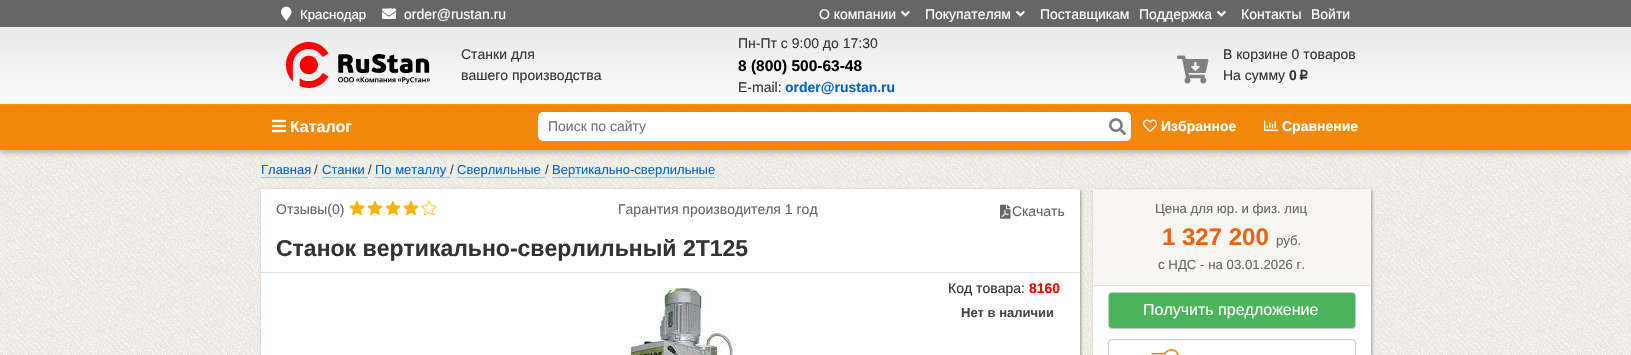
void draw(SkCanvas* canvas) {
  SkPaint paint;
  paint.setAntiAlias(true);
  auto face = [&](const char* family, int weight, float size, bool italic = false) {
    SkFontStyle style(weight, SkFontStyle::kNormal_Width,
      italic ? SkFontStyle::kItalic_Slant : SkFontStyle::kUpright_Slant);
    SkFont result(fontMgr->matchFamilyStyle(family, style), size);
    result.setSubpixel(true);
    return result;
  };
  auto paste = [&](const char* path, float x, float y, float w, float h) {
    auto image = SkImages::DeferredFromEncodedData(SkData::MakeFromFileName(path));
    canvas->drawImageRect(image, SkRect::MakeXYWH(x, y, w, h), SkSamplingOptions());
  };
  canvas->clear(0xffffffff);
  paste("img/1.png", 0, 104, 1631, 251);
  paste("img/2.png", 0, 27, 1631, 70);
  paint.setColor(0xff666666);
  canvas->drawRect(SkRect::MakeXYWH(0, 0, 1631, 27), paint);
  paste("img/3.png", 281, 6, 11, 15);
  paste("img/4.png", 382, 8, 14, 11);
  paste("img/5.png", 901, 11, 9, 6);
  paste("img/5.png", 1016, 11, 9, 6);
  paste("img/5.png", 1217, 11, 9, 6);
  paste("img/6.png", 286, 42, 144, 46);
  paste("img/7.png", 1177, 55, 32, 29);
  paint.setColor(0xffb4b4b4);
  paint.setMaskFilter(SkMaskFilter::MakeBlur(kNormal_SkBlurStyle, 2.5f));
  canvas->drawRect(SkRect::MakeXYWH(0, 107, 1631, 46), paint);
  paint.setMaskFilter(nullptr);
  paste("img/8.png", 0, 104, 1631, 46);
  paste("img/9.png", 272, 119, 14, 14);
  paint.setColor(0xffffffff);
  canvas->drawRoundRect(SkRect::MakeXYWH(538, 112, 593, 29), 5, 5, paint);
  canvas->drawRoundRect(SkRect::MakeXYWH(1104, 113, 27, 27), 5, 5, paint);
  paste("img/10.png", 1109, 118, 17, 18);
  paste("img/11.png", 1143, 119, 14, 13);
  paste("img/12.png", 1264, 120, 14, 11);
  {
    const struct { float x, y, w, h; SkColor color; } items[] = {
      {261, 177, 50, 1, 0xff99c1e6},
      {322, 177, 46, 1, 0xff99c1e6},
      {375, 177, 75, 1, 0xff99c1e6},
      {457, 177, 88, 1, 0xff99c1e6},
      {552, 177, 163, 1, 0xff99c1e6},
    };
    for (auto [x, y, w, h, color] : items) {
      paint.setColor(color);
      canvas->drawRect(SkRect::MakeXYWH(x, y, w, h), paint);
    }
  }
  paint.setColor(0xff999999);
  paint.setMaskFilter(SkMaskFilter::MakeBlur(kNormal_SkBlurStyle, 1.5f));
  canvas->drawRect(SkRect::MakeXYWH(262, 190, 819, 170), paint);
  paint.setMaskFilter(nullptr);
  paint.setColor(0xffffffff);
  canvas->drawRect(SkRect::MakeXYWH(261, 189, 819, 166), paint);
  paste("img/13.png", 349, 200, 16, 16);
  paste("img/13.png", 367, 200, 16, 16);
  paste("img/13.png", 385, 200, 16, 16);
  paste("img/13.png", 403, 200, 16, 16);
  paste("img/14.png", 421, 200, 16, 16);
  paste("img/15.png", 1000, 204, 11, 15);
  paint.setColor(0xffdde2e6);
  canvas->drawRect(SkRect::MakeXYWH(261, 272, 819, 1), paint);
  paste("img/16.png", 620, 288, 117, 67);
  paint.setColor(0xff999999);
  paint.setMaskFilter(SkMaskFilter::MakeBlur(kNormal_SkBlurStyle, 1.5f));
  canvas->drawRect(SkRect::MakeXYWH(1094, 190, 278, 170), paint);
  paint.setMaskFilter(nullptr);
  {
    const struct { float x, y, w, h; SkColor color; } items[] = {
      {1093, 286, 278, 69, 0xffffffff},
      {1093, 189, 278, 96, 0xfff7f6f3},
      {1093, 285, 278, 1, 0xffdde2e6},
    };
    for (auto [x, y, w, h, color] : items) {
      paint.setColor(color);
      canvas->drawRect(SkRect::MakeXYWH(x, y, w, h), paint);
    }
  }
  paint.setColor(0xff4db45e);
  canvas->drawRoundRect(SkRect::MakeXYWH(1108.5f, 292.5f, 247, 36), 3.5f, 3.5f, paint);
  paint.setStroke(true);
  paint.setStrokeWidth(1);
  paint.setColor(0xffcccccc);
  canvas->drawRoundRect(SkRect::MakeXYWH(1108.5f, 292.5f, 247, 36), 3.5f, 3.5f, paint);
  canvas->drawRoundRect(SkRect::MakeXYWH(1108.5f, 339.5f, 247, 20), 3.5f, 3.5f, paint);
  paste("img/17.png", 1151, 349, 28, 6);
  auto f0 = face("Liberation Sans", 400, 13.25f);
  paint.setStroke(false);
  paint.setColor(0xffffffff);
  canvas->drawString("Краснодар", 300, 19, f0, paint);
  auto f1 = face("Liberation Sans", 400, 14);
  {
    const struct { const char* s; float x, y; } items[] = {
      {"order@rustan.ru", 404, 19},
      {"О компании", 819, 19},
      {"Покупателям", 925, 19},
      {"Поставщикам", 1040, 19},
      {"Поддержка", 1139, 19},
      {"Контакты", 1241, 19},
      {"Войти", 1311, 19},
    };
    for (auto [s, x, y] : items) {
      canvas->drawString(s, x, y, f1, paint);
    }
  }
  paint.setColor(0xff333333);
  {
    const struct { const char* s; float x, y; } items[] = {
      {"Станки для", 461, 59},
      {"вашего производства", 461, 80},
      {"Пн-Пт с 9:00 до 17:30", 738, 48},
    };
    for (auto [s, x, y] : items) {
      canvas->drawString(s, x, y, f1, paint);
    }
  }
  auto f2 = face("Liberation Sans", 700, 15.5f);
  paint.setColor(0xff000000);
  canvas->drawString("8 (800) 500-63-48", 738, 71, f2, paint);
  paint.setColor(0xff333333);
  canvas->drawString("E-mail:", 738, 92, f1, paint);
  auto f3 = face("Liberation Sans", 700, 14);
  paint.setColor(0xff0164c1);
  canvas->drawString("order@rustan.ru", 785, 92, f3, paint);
  paint.setColor(0xff333333);
  canvas->drawString("В корзине 0 товаров", 1223, 59, f1, paint);
  canvas->drawString("На сумму", 1223, 80, f1, paint);
  canvas->drawString("0", 1289, 80, f3, paint);
  auto f4 = face("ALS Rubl", 700, 14);
  canvas->drawString("p", 1297, 80, f4, paint);
  auto f5 = face("Liberation Sans", 700, 16);
  paint.setColor(0xffffffff);
  canvas->drawString("Каталог", 290, 132, f5, paint);
  paint.setColor(0xff757575);
  canvas->drawString("Поиск по сайту", 548, 131, f1, paint);
  paint.setColor(0xffffffff);
  canvas->drawString("Избранное", 1161, 131, f3, paint);
  canvas->drawString("Сравнение", 1282, 131, f3, paint);
  auto f6 = face("Liberation Sans", 400, 13);
  paint.setColor(0xff0164c1);
  canvas->drawString("Главная", 261, 174, f6, paint);
  paint.setColor(0xff444444);
  canvas->drawString("/", 314, 174, f6, paint);
  paint.setColor(0xff0164c1);
  canvas->drawString("Станки", 322, 174, f6, paint);
  paint.setColor(0xff444444);
  canvas->drawString("/", 368, 174, f6, paint);
  paint.setColor(0xff0164c1);
  canvas->drawString("По металлу", 375, 174, f6, paint);
  paint.setColor(0xff444444);
  canvas->drawString("/", 450, 174, f6, paint);
  paint.setColor(0xff0164c1);
  canvas->drawString("Сверлильные", 457, 174, f6, paint);
  paint.setColor(0xff444444);
  canvas->drawString("/", 545, 174, f6, paint);
  paint.setColor(0xff0164c1);
  canvas->drawString("Вертикально-сверлильные", 552, 174, f6, paint);
  paint.setColor(0xff666666);
  {
    const struct { const char* s; float x, y; } items[] = {
      {"Отзывы(0)", 276, 214},
      {"Гарантия производителя 1 год", 618, 214},
      {"Скачать", 1012, 216},
    };
    for (auto [s, x, y] : items) {
      canvas->drawString(s, x, y, f1, paint);
    }
  }
  auto f7 = face("Liberation Sans", 700, 23);
  paint.setColor(0xff333333);
  canvas->drawString("Станок вертикально-сверлильный 2Т125", 276, 256, f7, paint);
  canvas->drawString("Код товара:", 948, 293, f1, paint);
  paint.setColor(0xffff0000);
  canvas->drawString("8160", 1029, 293, f3, paint);
  auto f8 = face("Liberation Sans", 700, 13);
  paint.setColor(0xff444444);
  canvas->drawString("Нет в наличии", 961, 317, f8, paint);
  paint.setColor(0xff666666);
  canvas->drawString("Цена для юр. и физ. лиц", 1155, 213, f0, paint);
  auto f9 = face("Liberation Sans", 700, 24);
  paint.setColor(0xffed620d);
  canvas->drawString("1 327 200", 1162, 245, f9, paint);
  paint.setColor(0xff666666);
  canvas->drawString("руб.", 1276, 245, f0, paint);
  canvas->drawString("с НДС - на 03.01.2026 г.", 1158, 269, f0, paint);
  auto f10 = face("Liberation Sans", 400, 16);
  paint.setColor(0xffffffff);
  canvas->drawString("Получить предложение", 1143, 315, f10, paint);
}
